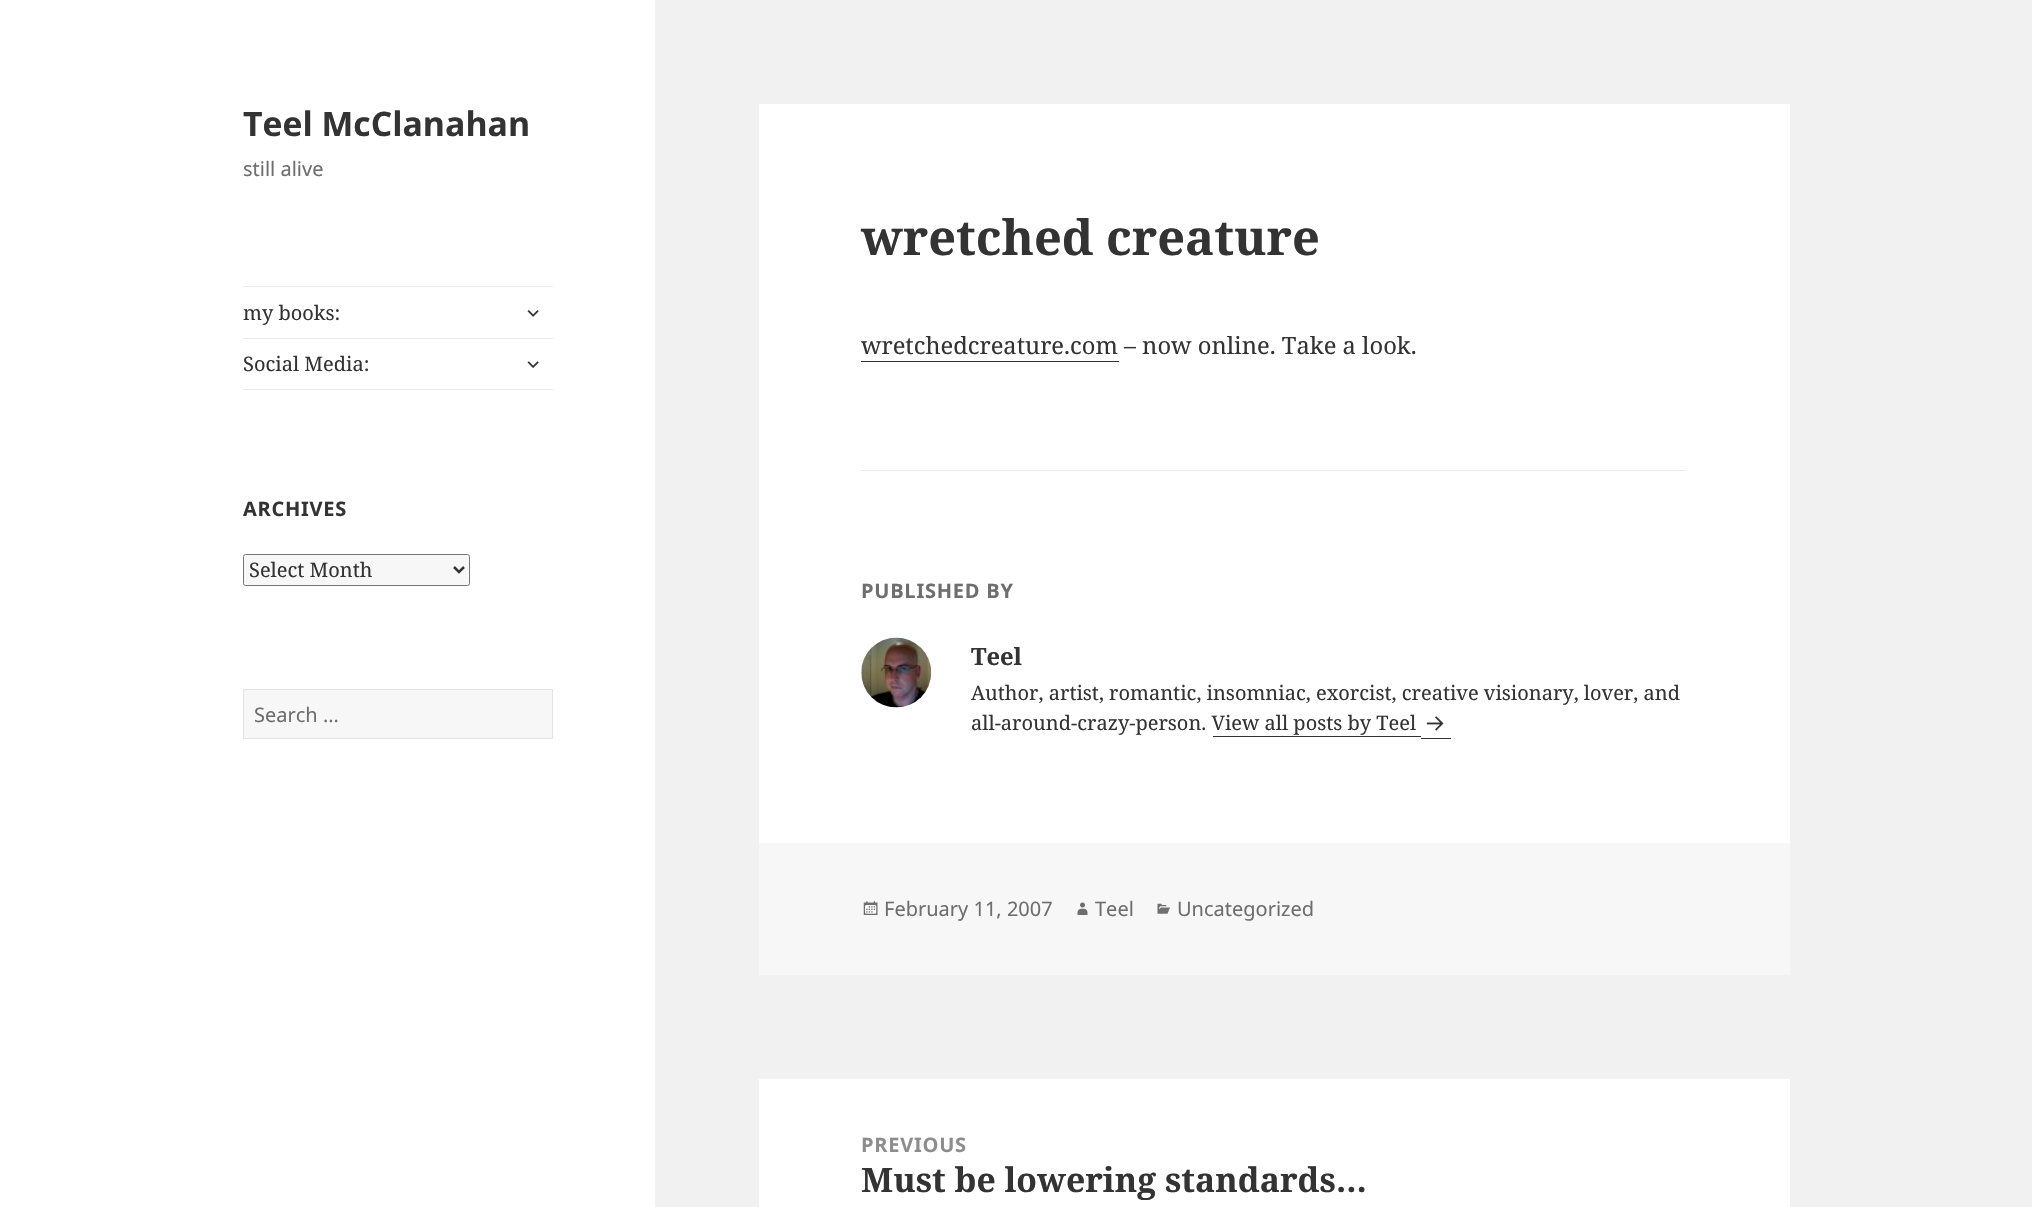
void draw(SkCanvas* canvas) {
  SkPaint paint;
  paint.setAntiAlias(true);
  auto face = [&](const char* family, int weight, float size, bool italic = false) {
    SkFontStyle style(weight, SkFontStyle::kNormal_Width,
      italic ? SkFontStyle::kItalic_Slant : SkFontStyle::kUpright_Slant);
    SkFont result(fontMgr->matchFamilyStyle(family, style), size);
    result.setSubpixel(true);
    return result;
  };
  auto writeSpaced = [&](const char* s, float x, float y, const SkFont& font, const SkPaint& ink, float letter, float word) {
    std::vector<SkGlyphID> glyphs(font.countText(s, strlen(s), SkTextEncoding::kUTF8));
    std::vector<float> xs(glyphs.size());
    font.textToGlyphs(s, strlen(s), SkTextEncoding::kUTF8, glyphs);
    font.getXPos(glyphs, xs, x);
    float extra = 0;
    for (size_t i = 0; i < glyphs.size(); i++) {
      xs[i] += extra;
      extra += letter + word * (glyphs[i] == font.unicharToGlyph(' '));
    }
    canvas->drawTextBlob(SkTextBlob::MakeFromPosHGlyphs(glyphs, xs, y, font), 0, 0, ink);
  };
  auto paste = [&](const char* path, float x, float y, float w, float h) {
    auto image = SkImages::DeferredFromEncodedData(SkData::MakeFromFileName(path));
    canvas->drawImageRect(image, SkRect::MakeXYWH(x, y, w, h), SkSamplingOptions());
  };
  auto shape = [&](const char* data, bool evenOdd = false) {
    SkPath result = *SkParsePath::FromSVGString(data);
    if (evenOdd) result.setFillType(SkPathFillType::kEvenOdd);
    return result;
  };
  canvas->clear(0xfff1f1f1);
  {
    const struct { float x, y, w, h; SkColor color; } items[] = {
      {0, 0, 655, 1207, 0xffffffff},
      {243, 286, 310, 1, 0xffebebeb},
      {243, 389, 310, 1, 0xffebebeb},
    };
    for (auto [x, y, w, h, color] : items) {
      paint.setColor(color);
      canvas->drawRect(SkRect::MakeXYWH(x, y, w, h), paint);
    }
  }
  paste("img/1.png", 527, 310, 12, 7);
  canvas->drawRect(SkRect::MakeXYWH(243, 338, 310, 1), paint);
  paste("img/2.png", 527, 361, 12, 7);
  paint.setColor(0xfff7f7f7);
  canvas->drawRoundRect(SkRect::MakeXYWH(243.5f, 554.5f, 226, 31), 2, 2, paint);
  paint.setStroke(true);
  paint.setStrokeWidth(1);
  paint.setColor(0xff767676);
  canvas->drawRoundRect(SkRect::MakeXYWH(243.5f, 554.5f, 226, 31), 2, 2, paint);
  paint.setStrokeWidth(2.5f);
  paint.setColor(0xff333333);
  canvas->drawPath(shape("M454 567L459 572L464 567"), paint);
  paint.setStroke(false);
  paint.setColor(0xfff7f7f7);
  canvas->drawRect(SkRect::MakeXYWH(243.5f, 689.5f, 309, 49), paint);
  paint.setStroke(true);
  paint.setStrokeWidth(1);
  paint.setColor(0xffe3e3e3);
  canvas->drawRect(SkRect::MakeXYWH(243.5f, 689.5f, 309, 49), paint);
  paint.setStroke(false);
  {
    const struct { float x, y, w, h; SkColor color; } items[] = {
      {759, 104, 1031, 739, 0xffffffff},
      {861, 361, 258, 1, 0xff333333},
      {861, 470, 825, 1, 0xffebebeb},
    };
    for (auto [x, y, w, h, color] : items) {
      paint.setColor(color);
      canvas->drawRect(SkRect::MakeXYWH(x, y, w, h), paint);
    }
  }
  paste("img/3.png", 861, 637, 71, 71);
  paint.setColor(0xff333333);
  canvas->drawRect(SkRect::MakeXYWH(1213, 736, 208, 1), paint);
  canvas->drawRect(SkRect::MakeXYWH(1421, 738, 30, 1), paint);
  paste("img/4.png", 1426, 716, 18, 15);
  paint.setColor(0xfff7f7f7);
  canvas->drawRect(SkRect::MakeXYWH(759, 843, 1031, 132), paint);
  paste("img/5.png", 863, 901, 15, 14);
  paste("img/6.png", 1077, 902, 11, 13);
  paste("img/7.png", 1157, 903, 13, 11);
  paint.setColor(0xffffffff);
  canvas->drawRect(SkRect::MakeXYWH(759, 1079, 1031, 128), paint);
  auto f0 = face("Noto Sans", 700, 33.75f);
  paint.setColor(0xff333333);
  canvas->drawString("Teel McClanahan", 243, 136, f0, paint);
  auto f1 = face("Noto Sans", 400, 20);
  paint.setColor(0xff6e6e6e);
  canvas->drawString("still alive", 243, 176, f1, paint);
  auto f2 = face("Noto Serif", 400, 20);
  paint.setColor(0xff333333);
  canvas->drawString("my books:", 243, 320, f2, paint);
  canvas->drawString("Social Media:", 243, 371, f2, paint);
  auto f3 = face("Noto Sans", 700, 20);
  writeSpaced("ARCHIVES", 243, 516, f3, paint, 0.75f, 0);
  canvas->drawString("Select Month", 249, 577, f2, paint);
  paint.setColor(0xff6e6e6e);
  canvas->drawString("Search …", 254, 722, f1, paint);
  auto f4 = face("Noto Serif", 700, 48.75f);
  paint.setColor(0xff333333);
  canvas->drawString("wretched creature", 861, 255, f4, paint);
  auto f5 = face("Noto Serif", 400, 23.75f);
  canvas->drawString("wretchedcreature.com – now online. Take a look.", 861, 354, f5, paint);
  paint.setColor(0xff6e6e6e);
  writeSpaced("PUBLISHED BY", 861, 598, f3, paint, 0.75f, 0);
  auto f6 = face("Noto Serif", 700, 23.75f);
  paint.setColor(0xff333333);
  canvas->drawString("Teel", 971, 665, f6, paint);
  canvas->drawString("Author, artist, romantic, insomniac, exorcist, creative visionary, lover, and", 971, 700, f2, paint);
  canvas->drawString("all-around-crazy-person. View all posts by Teel", 971, 730, f2, paint);
  paint.setColor(0xff6e6e6e);
  {
    const struct { const char* s; float x, y; } items[] = {
      {"February 11, 2007", 884, 916},
      {"Teel", 1095, 916},
      {"Uncategorized", 1177, 916},
    };
    for (auto [s, x, y] : items) {
      canvas->drawString(s, x, y, f1, paint);
    }
  }
  paint.setColor(0xff8d8d8d);
  writeSpaced("PREVIOUS", 861, 1152, f3, paint, 0.75f, 0);
  auto f7 = face("Noto Serif", 700, 33.75f);
  paint.setColor(0xff333333);
  canvas->drawString("Must be lowering standards…", 861, 1192, f7, paint);
}
